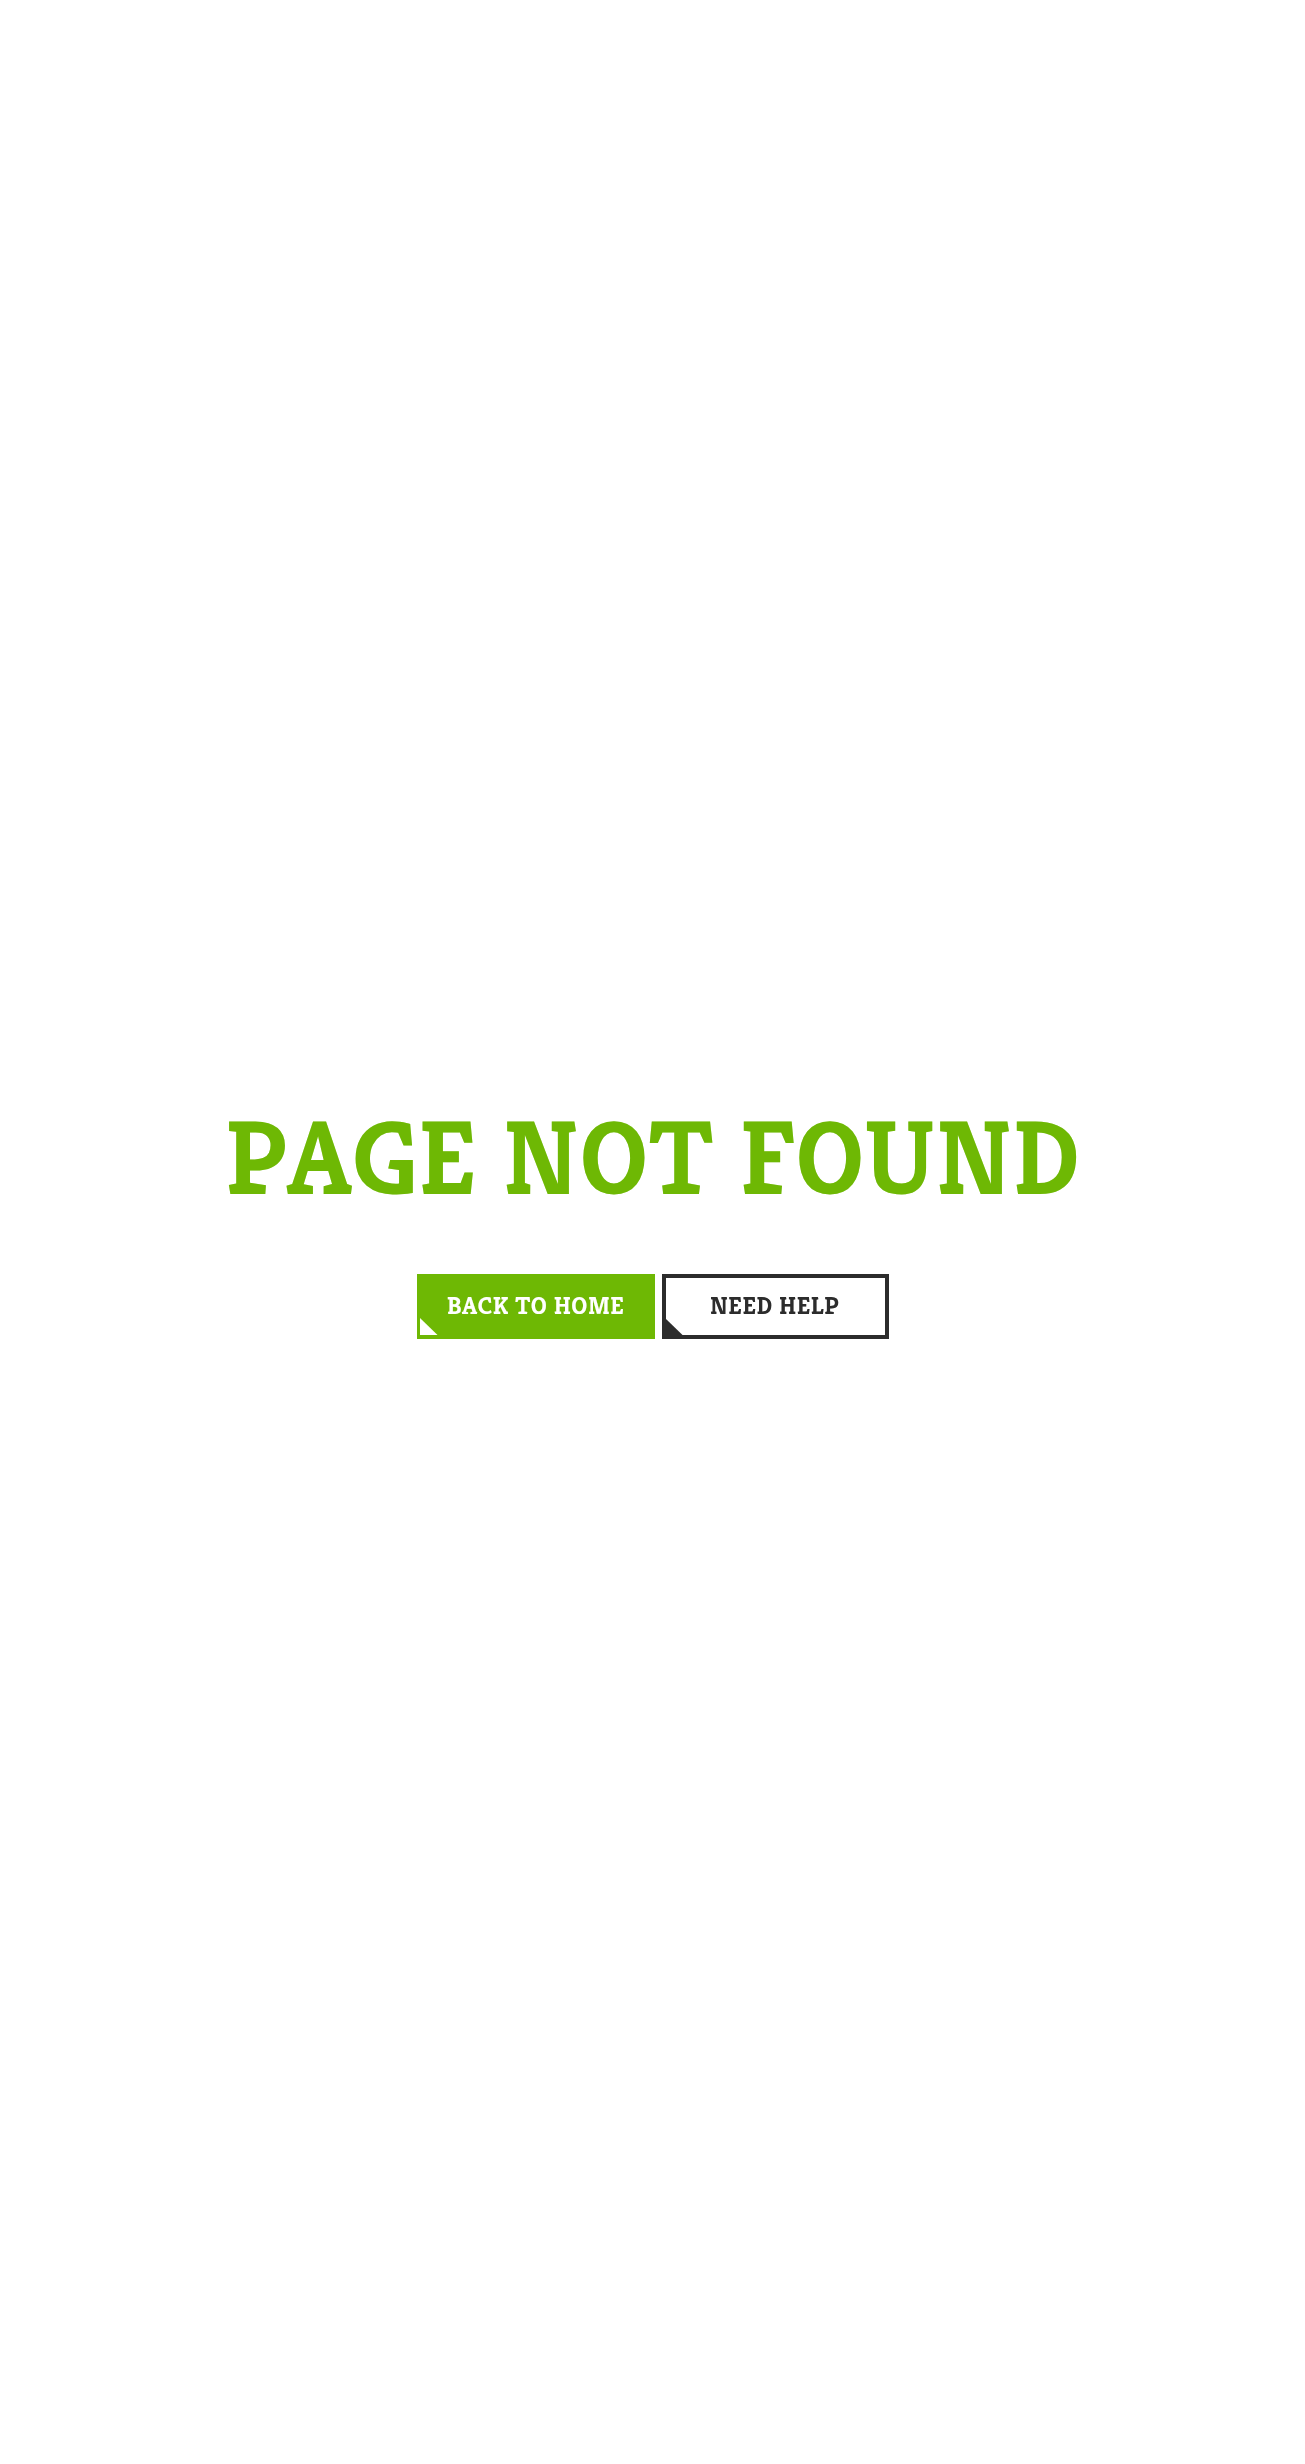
void draw(SkCanvas* canvas) {
  SkPaint paint;
  paint.setAntiAlias(true);
  auto face = [&](const char* family, int weight, float size, bool italic = false) {
    SkFontStyle style(weight, SkFontStyle::kNormal_Width,
      italic ? SkFontStyle::kItalic_Slant : SkFontStyle::kUpright_Slant);
    SkFont result(fontMgr->matchFamilyStyle(family, style), size);
    result.setSubpixel(true);
    return result;
  };
  auto writeSpaced = [&](const char* s, float x, float y, const SkFont& font, const SkPaint& ink, float letter, float word) {
    std::vector<SkGlyphID> glyphs(font.countText(s, strlen(s), SkTextEncoding::kUTF8));
    std::vector<float> xs(glyphs.size());
    font.textToGlyphs(s, strlen(s), SkTextEncoding::kUTF8, glyphs);
    font.getXPos(glyphs, xs, x);
    float extra = 0;
    for (size_t i = 0; i < glyphs.size(); i++) {
      xs[i] += extra;
      extra += letter + word * (glyphs[i] == font.unicharToGlyph(' '));
    }
    canvas->drawTextBlob(SkTextBlob::MakeFromPosHGlyphs(glyphs, xs, y, font), 0, 0, ink);
  };
  auto shape = [&](const char* data, bool evenOdd = false) {
    SkPath result = *SkParsePath::FromSVGString(data);
    if (evenOdd) result.setFillType(SkPathFillType::kEvenOdd);
    return result;
  };
  canvas->clear(0xffffffff);
  paint.setColor(0xff6eb804);
  canvas->drawRect(SkRect::MakeXYWH(417, 1274, 238, 65), paint);
  paint.setColor(0xffffffff);
  canvas->drawPath(shape("M420 1335V1318L437.5 1335Z"), paint);
  paint.setStroke(true);
  paint.setStrokeWidth(4);
  paint.setColor(0xff2c2c2c);
  canvas->drawRect(SkRect::MakeXYWH(664, 1276, 223, 61), paint);
  paint.setStroke(false);
  canvas->drawPath(shape("M665 1335V1318L682.5 1335Z"), paint);
  auto f0 = face("Kreon", 700, 105);
  paint.setColor(0xff6eb804);
  writeSpaced("PAGE NOT FOUND", 225, 1194, f0, paint, 0.5f, 0);
  auto f1 = face("Kreon", 700, 24.5f);
  paint.setColor(0xffffffff);
  writeSpaced("BACK TO HOME", 447, 1314, f1, paint, 0.5f, 0);
  paint.setColor(0xff2c2c2c);
  writeSpaced("NEED HELP", 710, 1314, f1, paint, 0.5f, 0);
}
